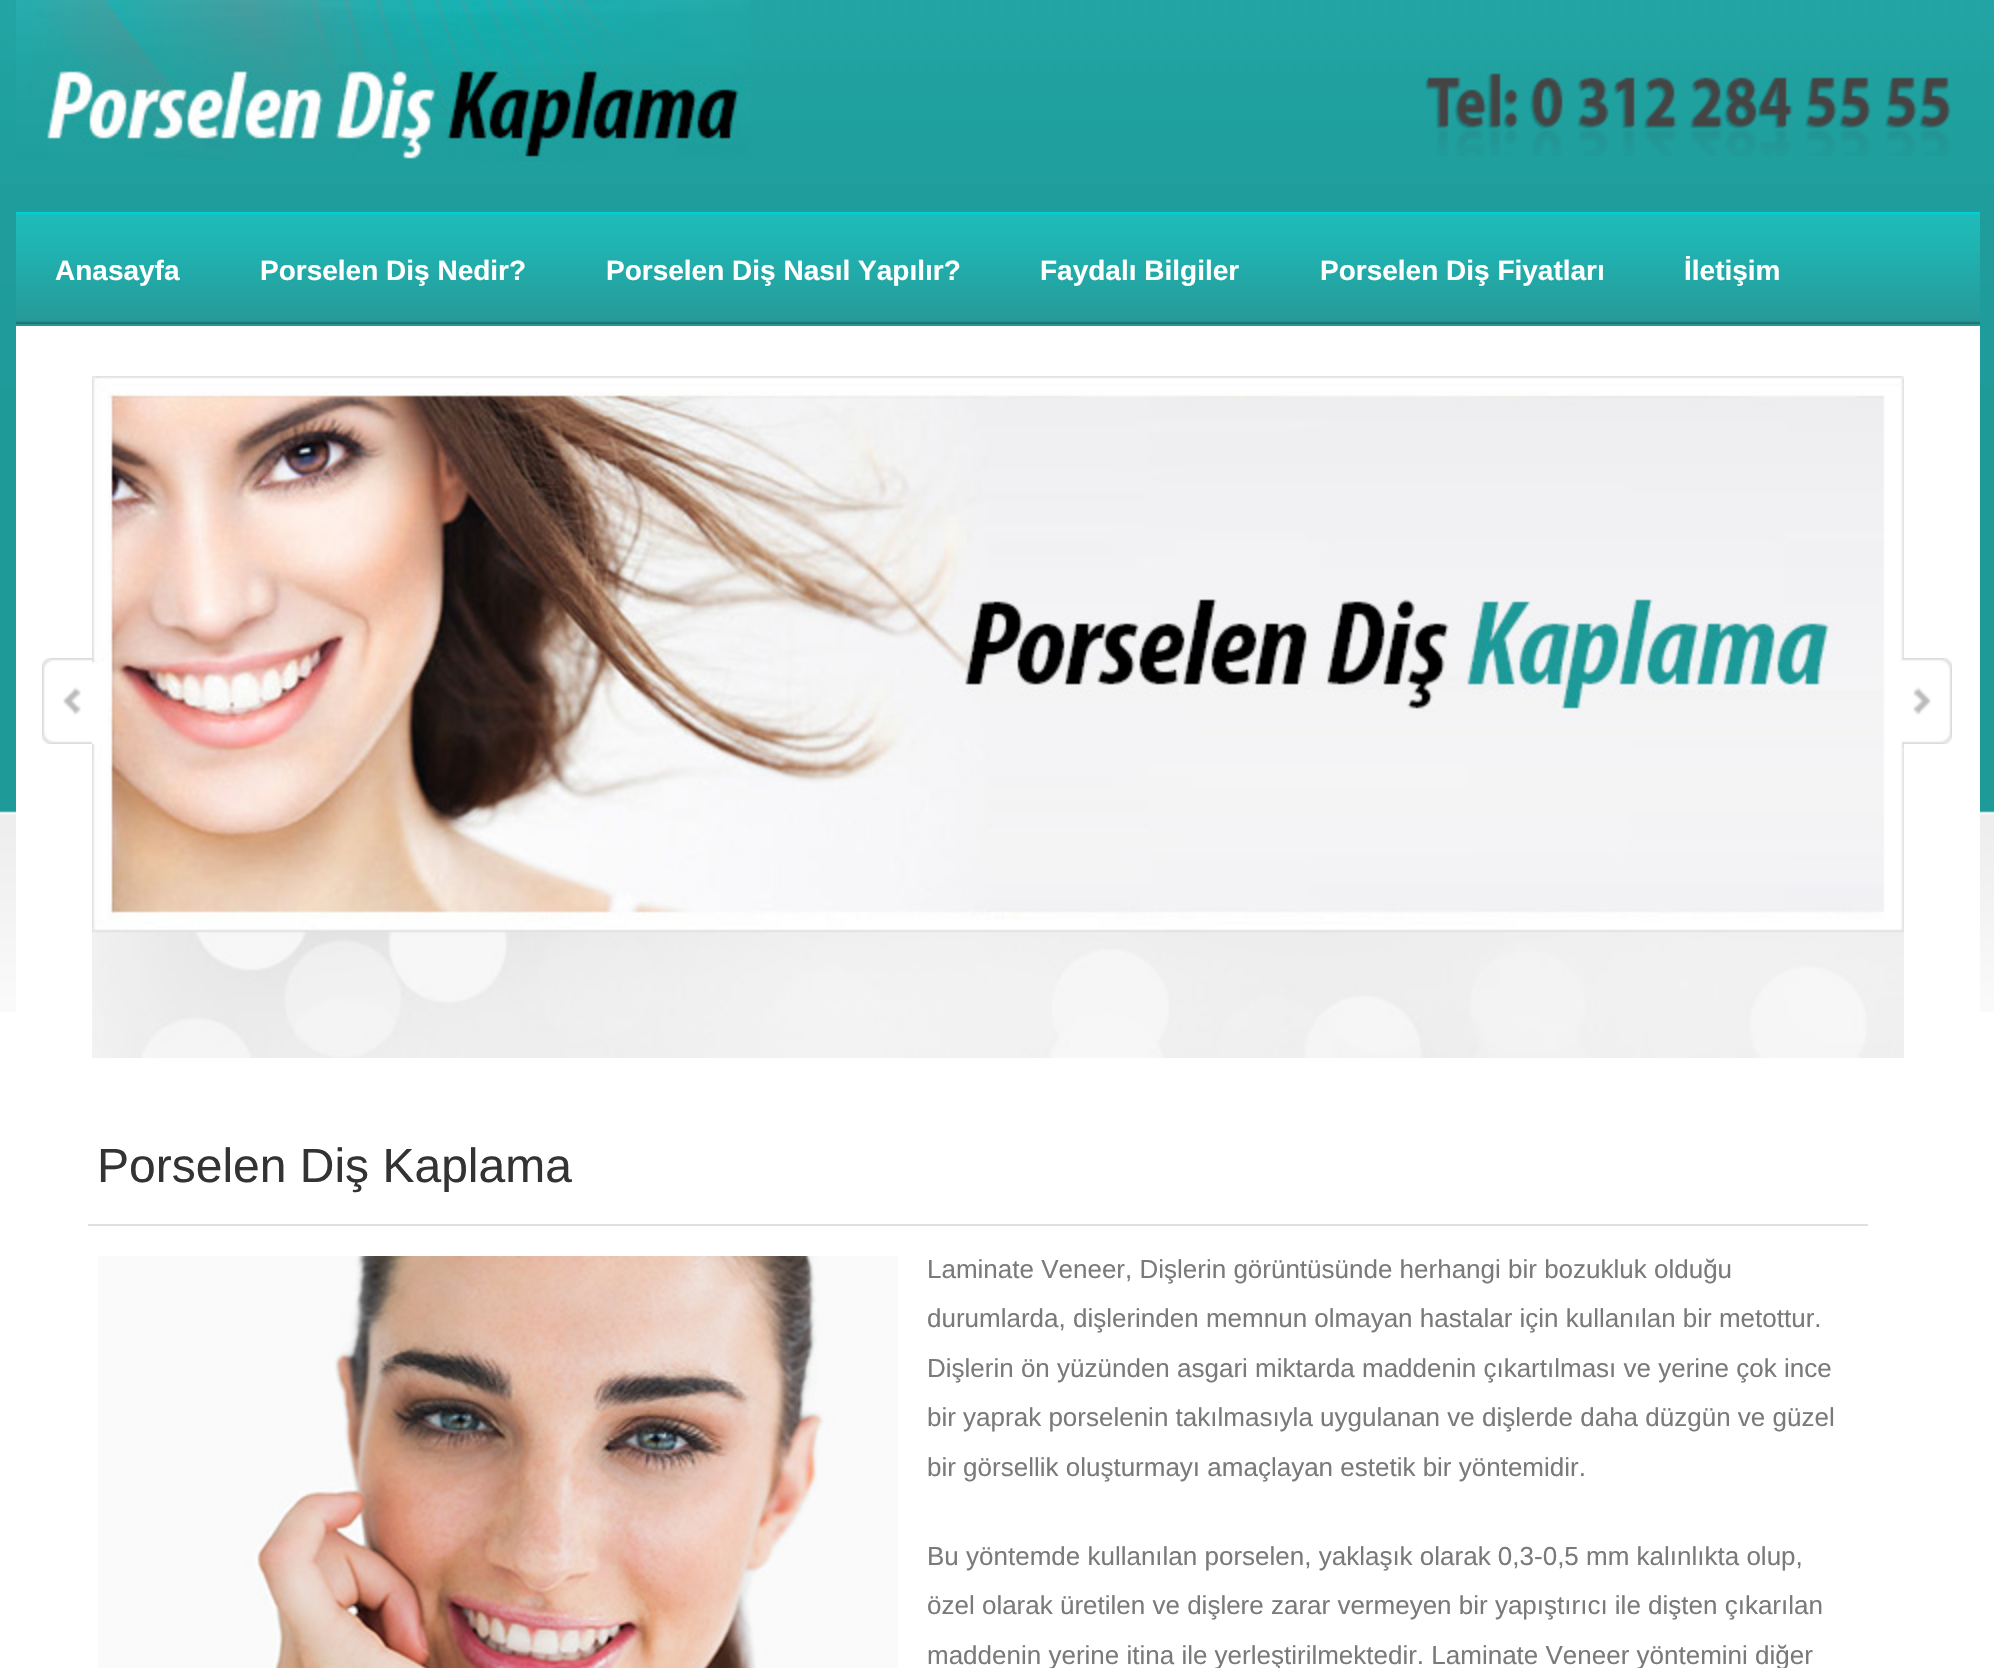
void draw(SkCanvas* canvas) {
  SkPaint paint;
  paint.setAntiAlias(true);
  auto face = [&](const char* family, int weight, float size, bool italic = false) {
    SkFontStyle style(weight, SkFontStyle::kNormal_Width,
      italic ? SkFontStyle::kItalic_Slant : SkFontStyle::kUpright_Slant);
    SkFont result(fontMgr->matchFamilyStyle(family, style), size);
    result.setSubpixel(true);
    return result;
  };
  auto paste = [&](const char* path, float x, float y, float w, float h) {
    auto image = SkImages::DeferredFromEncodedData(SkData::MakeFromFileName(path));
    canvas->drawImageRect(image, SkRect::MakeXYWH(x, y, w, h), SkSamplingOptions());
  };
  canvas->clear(0xffffffff);
  paste("img/1.png", 0, 0, 1994, 1012);
  paste("img/2.png", 16, 0, 735, 161);
  paste("img/3.png", 1425, 73, 526, 83);
  paste("img/4.png", 16, 212, 1964, 112);
  paint.setColor(0xffffffff);
  canvas->drawRect(SkRect::MakeXYWH(16, 326, 1964, 686), paint);
  paste("img/5.png", 92, 376, 1812, 682);
  paste("img/6.png", 42, 658, 50, 86);
  paste("img/7.png", 1902, 658, 50, 86);
  paint.setColor(0xffdfdfdf);
  canvas->drawRect(SkRect::MakeXYWH(88, 1224, 1780, 2), paint);
  paste("img/8.png", 98, 1256, 800, 412);
  auto f0 = face("Liberation Sans", 700, 28);
  paint.setColor(0xffffffff);
  {
    const struct { const char* s; float x, y; } items[] = {
      {"Anasayfa", 55, 280},
      {"Porselen Diş Nedir?", 260, 280},
      {"Porselen Diş Nasıl Yapılır?", 606, 280},
      {"Faydalı Bilgiler", 1040, 280},
      {"Porselen Diş Fiyatları", 1320, 280},
      {"İletişim", 1684, 280},
    };
    for (auto [s, x, y] : items) {
      canvas->drawString(s, x, y, f0, paint);
    }
  }
  auto f1 = face("Liberation Sans", 400, 48);
  paint.setColor(0xff333333);
  canvas->drawString("Porselen Diş Kaplama", 97, 1182, f1, paint);
  auto f2 = face("Liberation Sans", 400, 26);
  paint.setColor(0xff7a7a7a);
  {
    const struct { const char* s; float x, y; } items[] = {
      {"Laminate Veneer, Dişlerin görüntüsünde herhangi bir bozukluk olduğu", 927, 1278},
      {"durumlarda, dişlerinden memnun olmayan hastalar için kullanılan bir metottur.", 927, 1327},
      {"Dişlerin ön yüzünden asgari miktarda maddenin çıkartılması ve yerine çok ince", 927, 1377},
      {"bir yaprak porselenin takılmasıyla uygulanan ve dişlerde daha düzgün ve güzel", 927, 1426},
      {"bir görsellik oluşturmayı amaçlayan estetik bir yöntemidir.", 927, 1476},
      {"Bu yöntemde kullanılan porselen, yaklaşık olarak 0,3-0,5 mm kalınlıkta olup,", 927, 1565},
      {"özel olarak üretilen ve dişlere zarar vermeyen bir yapıştırıcı ile dişten çıkarılan", 927, 1614},
      {"maddenin yerine itina ile yerleştirilmektedir. Laminate Veneer yöntemini diğer", 927, 1664},
    };
    for (auto [s, x, y] : items) {
      canvas->drawString(s, x, y, f2, paint);
    }
  }
}
